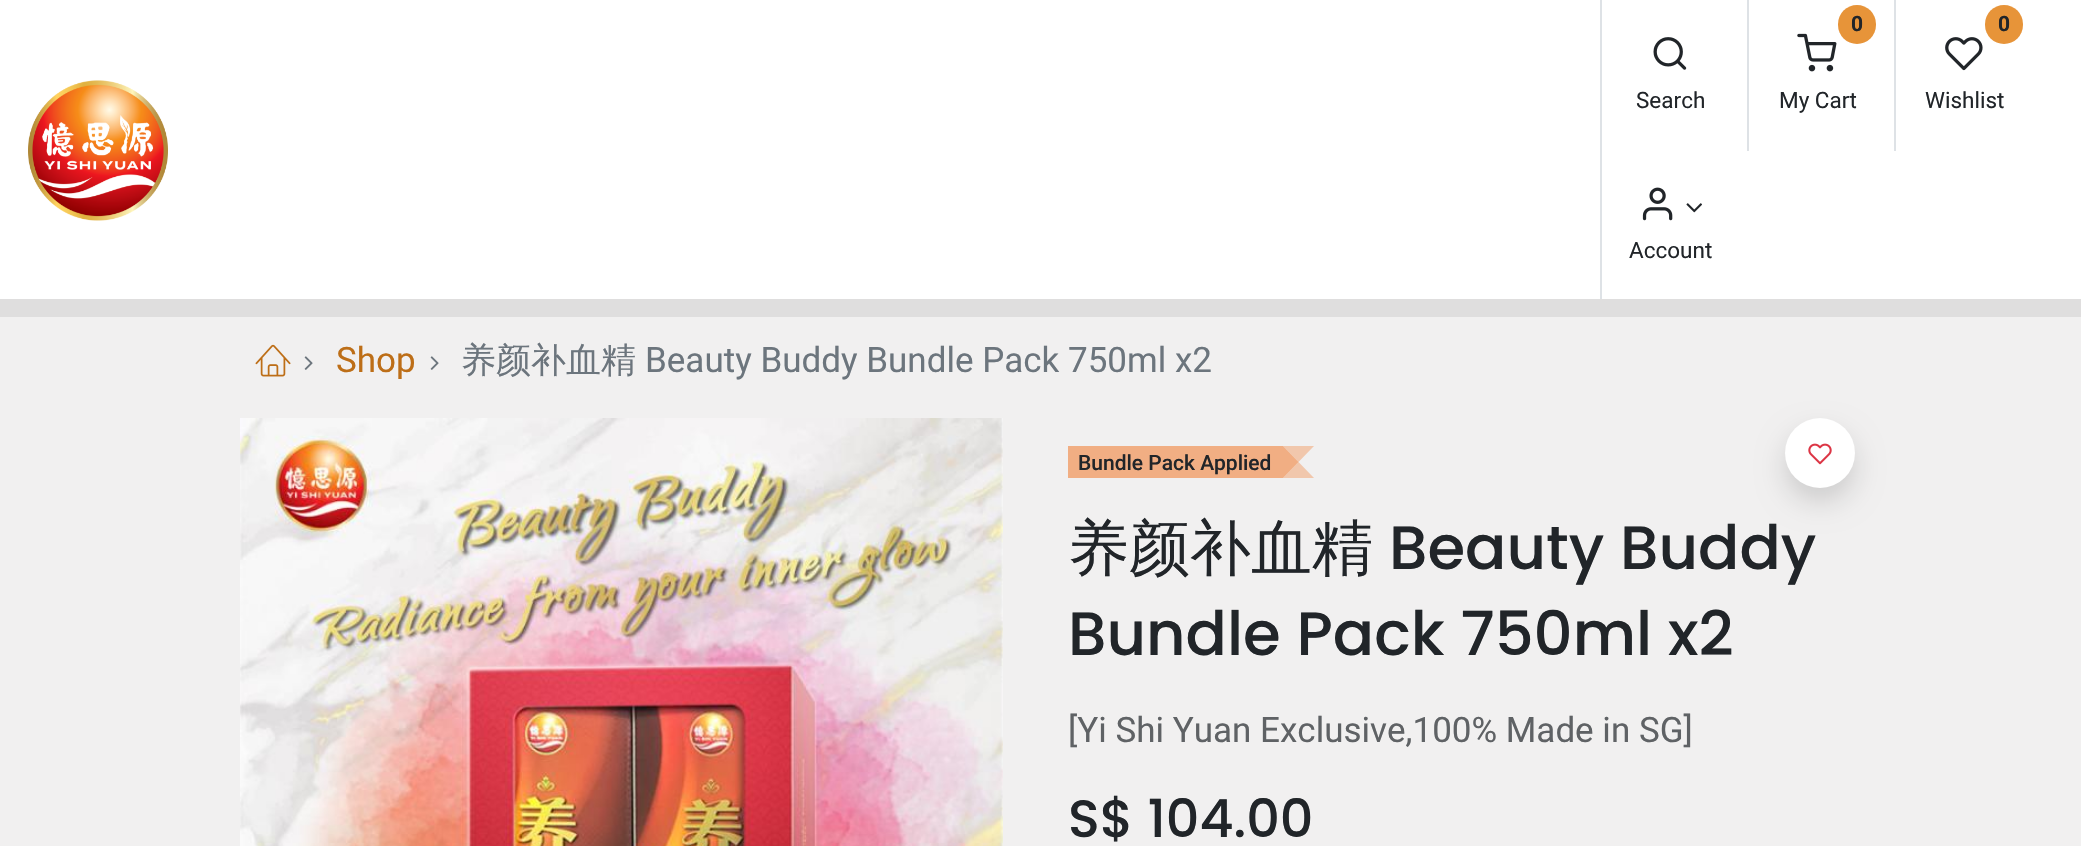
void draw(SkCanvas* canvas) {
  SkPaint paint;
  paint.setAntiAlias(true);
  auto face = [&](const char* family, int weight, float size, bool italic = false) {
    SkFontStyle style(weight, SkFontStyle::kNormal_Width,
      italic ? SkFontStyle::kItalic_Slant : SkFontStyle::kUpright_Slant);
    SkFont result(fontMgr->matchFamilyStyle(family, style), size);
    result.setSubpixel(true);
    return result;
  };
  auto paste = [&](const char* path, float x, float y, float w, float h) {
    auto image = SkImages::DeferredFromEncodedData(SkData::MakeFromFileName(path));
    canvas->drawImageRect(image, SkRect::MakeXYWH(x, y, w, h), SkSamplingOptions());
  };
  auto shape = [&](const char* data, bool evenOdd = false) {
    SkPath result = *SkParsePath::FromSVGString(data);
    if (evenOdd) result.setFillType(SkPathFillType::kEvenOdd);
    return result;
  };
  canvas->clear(0xfff1f0f0);
  paint.setColor(0xffdfdede);
  canvas->drawPath(shape("M0 299V317H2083V18H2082V299Z"), paint);
  paint.setColor(0xffffffff);
  canvas->drawRect(SkRect::MakeXYWH(0, 0, 2081, 299), paint);
  paste("img/1.png", 28, 80, 140, 141);
  paint.setColor(0xffdee2e6);
  canvas->drawRect(SkRect::MakeXYWH(1600, 0, 2, 299), paint);
  paste("img/2.png", 1653, 37, 34, 33);
  canvas->drawRect(SkRect::MakeXYWH(1747, 0, 2, 151), paint);
  paint.setColor(0xffe79439);
  canvas->drawRoundRect(SkRect::MakeXYWH(1838, 5, 38, 39), 19, 19, paint);
  paste("img/3.png", 1797, 33, 40, 39);
  paint.setColor(0xffdee2e6);
  canvas->drawRect(SkRect::MakeXYWH(1894, 0, 2, 151), paint);
  paint.setColor(0xffe79439);
  canvas->drawRoundRect(SkRect::MakeXYWH(1985, 5, 38, 39), 19, 19, paint);
  paste("img/4.png", 1945, 37, 38, 34);
  paste("img/5.png", 1642, 187, 31, 34);
  paste("img/6.png", 1686, 203, 16, 10);
  paste("img/7.png", 255, 344, 36, 33);
  paste("img/8.png", 304, 356, 9, 14);
  paste("img/8.png", 430, 356, 9, 14);
  paste("img/9.png", 240, 418, 763, 428);
  paint.setColor(0xfff1ae83);
  canvas->drawRect(SkRect::MakeXYWH(1068, 446, 215, 32), paint);
  paint.setColor(0xfff1c7ac);
  canvas->drawPath(shape("M1283 446H1314L1298.5 462ZM1314 478H1283L1298.5 462Z"), paint);
  paint.setColor(0xccf19d68);
  canvas->drawPath(shape("M1283 478V446L1298.5 462Z"), paint);
  paint.setColor(0x26000000);
  paint.setMaskFilter(SkMaskFilter::MakeBlur(kNormal_SkBlurStyle, 14));
  canvas->drawRoundRect(SkRect::MakeXYWH(1785, 432, 70, 70), 35, 35, paint);
  paint.setMaskFilter(nullptr);
  paint.setColor(0xffffffff);
  canvas->drawCircle(1820, 453, 35, paint);
  paste("img/10.png", 1808, 443, 24, 22);
  auto f0 = face("Roboto", 400, 22.5f);
  paint.setColor(0xff212529);
  canvas->drawString("Search", 1636, 108, f0, paint);
  auto f1 = face("Roboto", 700, 21);
  canvas->drawString("0", 1851, 31, f1, paint);
  canvas->drawString("My Cart", 1779, 108, f0, paint);
  canvas->drawString("0", 1998, 31, f1, paint);
  canvas->drawString("Wishlist", 1925, 108, f0, paint);
  canvas->drawString("Account", 1629, 258, f0, paint);
  auto f2 = face("Roboto", 400, 35);
  paint.setColor(0xffbd6e17);
  canvas->drawString("Shop", 336, 372, f2, paint);
  auto f3 = face("WenQuanYi Zen Hei", 500, 35);
  paint.setColor(0xff6c757d);
  canvas->drawString("养颜补血精", 461, 372, f3, paint);
  canvas->drawString("Beauty Buddy Bundle Pack 750ml x2", 645, 372, f2, paint);
  auto f4 = face("Roboto", 500, 21);
  paint.setColor(0xff212529);
  canvas->drawString("Bundle Pack Applied", 1078, 470, f4, paint);
  auto f5 = face("WenQuanYi Zen Hei", 500, 61);
  canvas->drawString("养颜补血精", 1068, 569, f5, paint);
  auto f6 = face("Poppins", 500, 61);
  canvas->drawString("Beauty Buddy", 1389, 569, f6, paint);
  canvas->drawString("Bundle Pack 750ml x2", 1068, 655, f6, paint);
  paint.setColor(0xff5f6265);
  canvas->drawString("[Yi Shi Yuan Exclusive,100% Made in SG]", 1068, 742, f2, paint);
  auto f7 = face("Poppins", 500, 52.5f);
  paint.setColor(0xff212529);
  canvas->drawString("S$ 104.00", 1068, 837, f7, paint);
}
